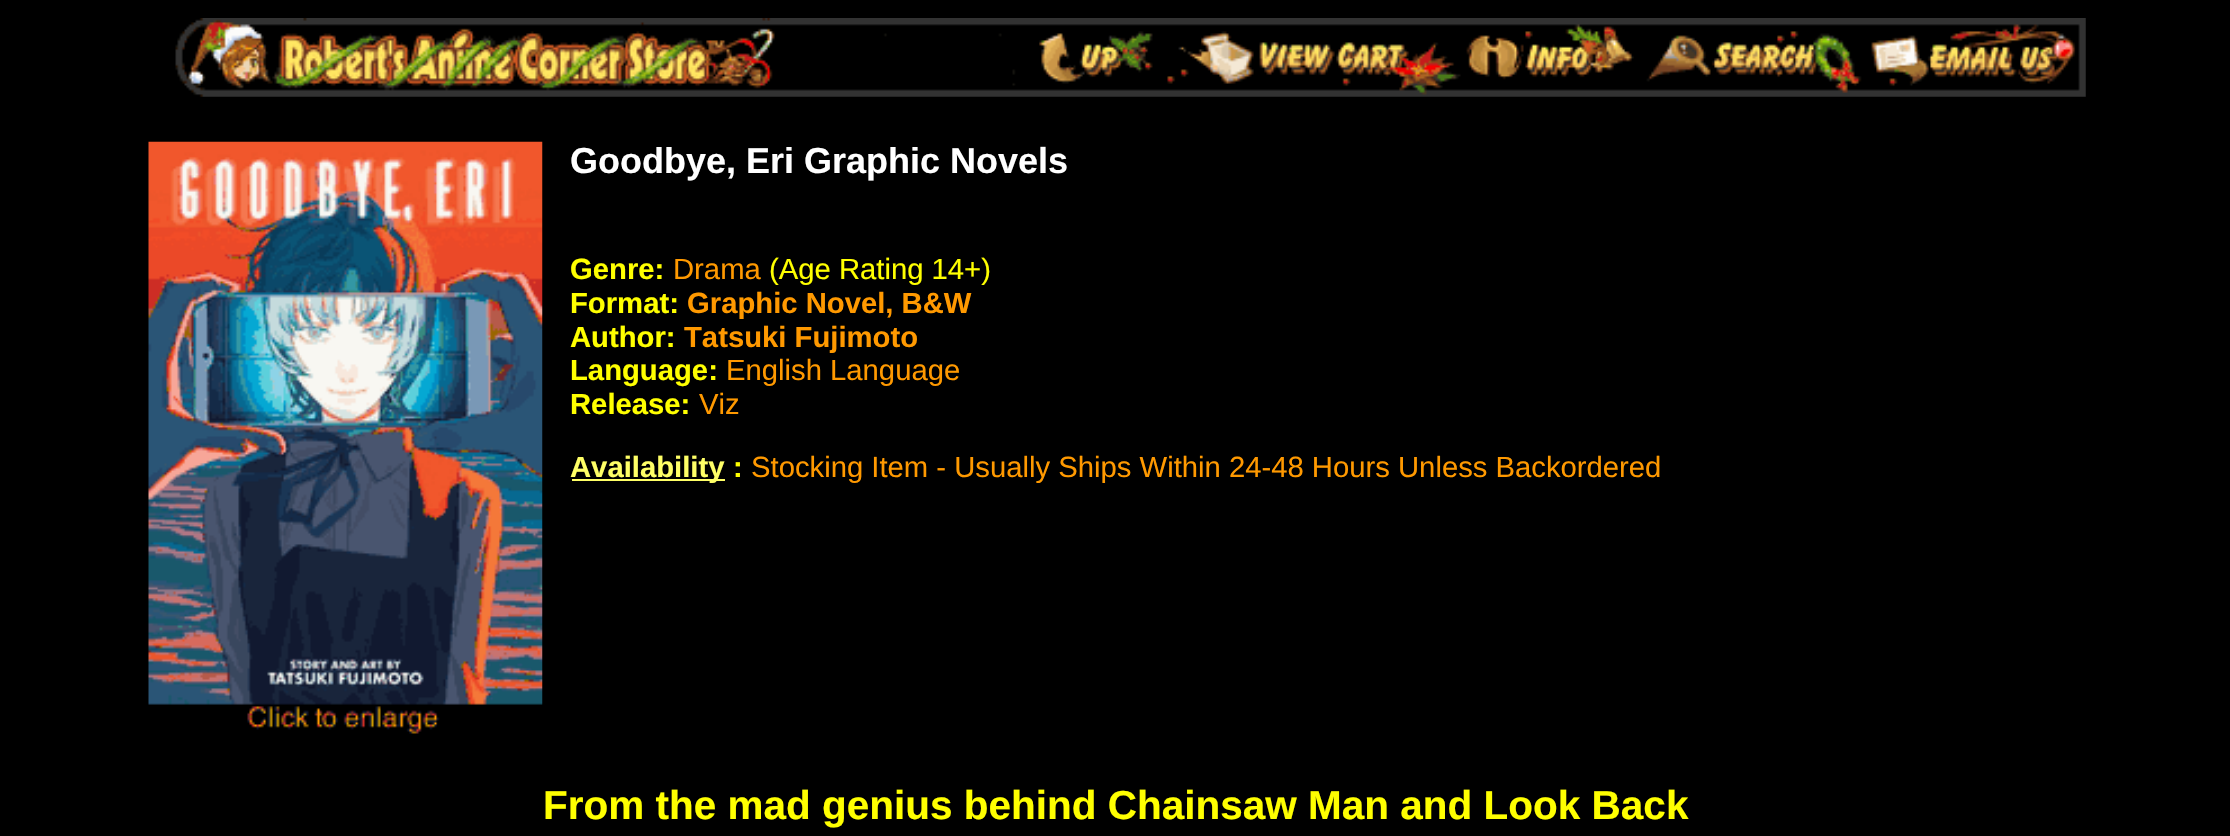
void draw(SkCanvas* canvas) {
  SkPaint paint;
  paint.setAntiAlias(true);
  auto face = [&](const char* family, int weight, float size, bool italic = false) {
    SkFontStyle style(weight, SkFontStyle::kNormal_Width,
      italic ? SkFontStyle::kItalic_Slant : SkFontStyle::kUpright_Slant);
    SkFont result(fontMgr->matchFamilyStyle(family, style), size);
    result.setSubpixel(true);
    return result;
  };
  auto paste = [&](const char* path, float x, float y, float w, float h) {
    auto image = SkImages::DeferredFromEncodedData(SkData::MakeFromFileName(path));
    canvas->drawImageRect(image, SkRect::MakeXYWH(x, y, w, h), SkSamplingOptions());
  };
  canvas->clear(0xff000000);
  paste("img/1.png", 175, 18, 1911, 79);
  paste("img/2.png", 148, 141, 395, 593);
  paint.setColor(0xffffff66);
  canvas->drawRect(SkRect::MakeXYWH(572, 479, 153, 2), paint);
  auto f0 = face("Liberation Sans", 700, 36);
  paint.setColor(0xffffffff);
  canvas->drawString("Goodbye, Eri Graphic Novels", 570, 173, f0, paint);
  auto f1 = face("Liberation Sans", 700, 29.25f);
  paint.setColor(0xffffff00);
  canvas->drawString("Genre:", 570, 279, f1, paint);
  auto f2 = face("Liberation Sans", 400, 29.25f);
  paint.setColor(0xffff9900);
  canvas->drawString("Drama", 673, 279, f2, paint);
  paint.setColor(0xffffff00);
  canvas->drawString("(Age Rating 14+)", 769, 279, f2, paint);
  canvas->drawString("Format:", 570, 313, f1, paint);
  paint.setColor(0xffff9900);
  canvas->drawString("Graphic Novel, B&W", 687, 313, f1, paint);
  paint.setColor(0xffffff00);
  canvas->drawString("Author:", 570, 347, f1, paint);
  paint.setColor(0xffff9900);
  canvas->drawString("Tatsuki Fujimoto", 684, 347, f1, paint);
  paint.setColor(0xffffff00);
  canvas->drawString("Language:", 570, 380, f1, paint);
  paint.setColor(0xffff9900);
  canvas->drawString("English Language", 726, 380, f2, paint);
  paint.setColor(0xffffff00);
  canvas->drawString("Release:", 570, 414, f1, paint);
  paint.setColor(0xffff9900);
  canvas->drawString("Viz", 699, 414, f2, paint);
  paint.setColor(0xffffff66);
  canvas->drawString("Availability", 570, 477, f1, paint);
  paint.setColor(0xffffff00);
  canvas->drawString(":", 733, 477, f1, paint);
  paint.setColor(0xffff9900);
  canvas->drawString("Stocking Item - Usually Ships Within 24-48 Hours Unless Backordered", 751, 477, f2, paint);
  auto f3 = face("Liberation Sans", 700, 40.5f);
  paint.setColor(0xffffff00);
  canvas->drawString("From the mad genius behind Chainsaw Man and Look Back", 543, 819, f3, paint);
}
